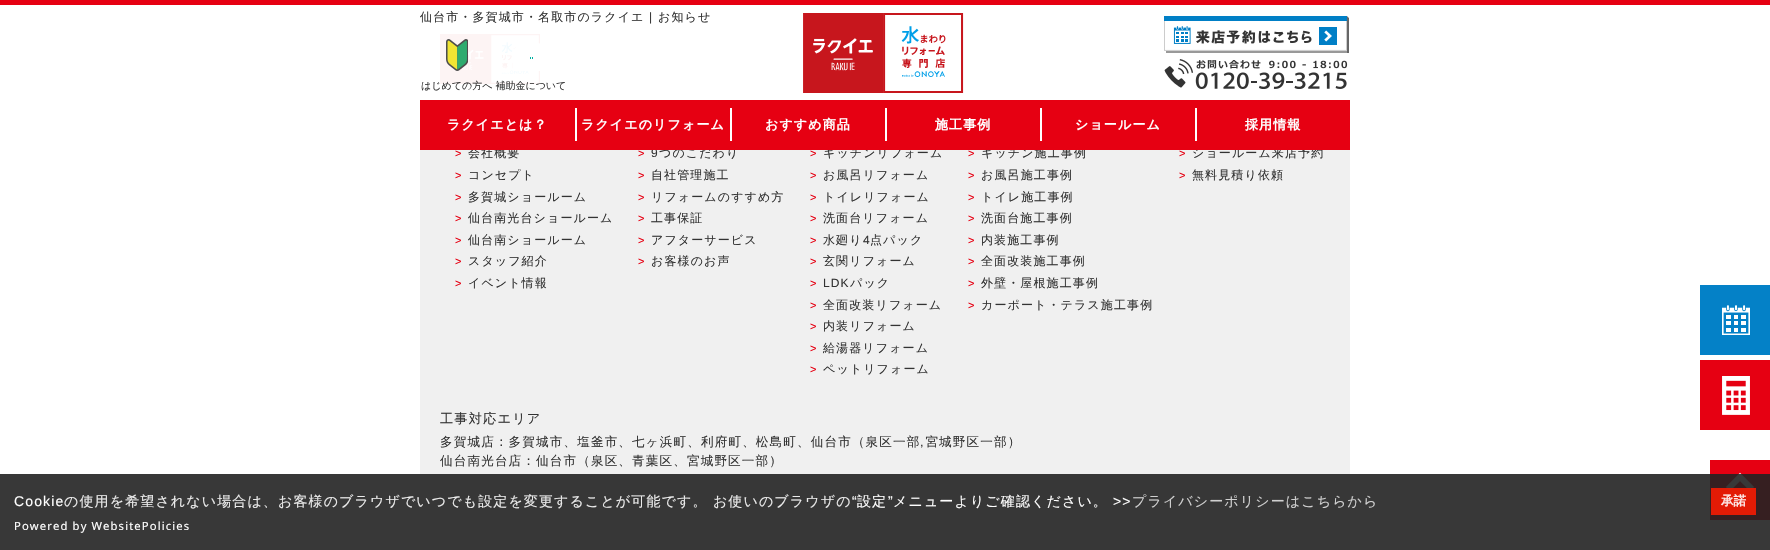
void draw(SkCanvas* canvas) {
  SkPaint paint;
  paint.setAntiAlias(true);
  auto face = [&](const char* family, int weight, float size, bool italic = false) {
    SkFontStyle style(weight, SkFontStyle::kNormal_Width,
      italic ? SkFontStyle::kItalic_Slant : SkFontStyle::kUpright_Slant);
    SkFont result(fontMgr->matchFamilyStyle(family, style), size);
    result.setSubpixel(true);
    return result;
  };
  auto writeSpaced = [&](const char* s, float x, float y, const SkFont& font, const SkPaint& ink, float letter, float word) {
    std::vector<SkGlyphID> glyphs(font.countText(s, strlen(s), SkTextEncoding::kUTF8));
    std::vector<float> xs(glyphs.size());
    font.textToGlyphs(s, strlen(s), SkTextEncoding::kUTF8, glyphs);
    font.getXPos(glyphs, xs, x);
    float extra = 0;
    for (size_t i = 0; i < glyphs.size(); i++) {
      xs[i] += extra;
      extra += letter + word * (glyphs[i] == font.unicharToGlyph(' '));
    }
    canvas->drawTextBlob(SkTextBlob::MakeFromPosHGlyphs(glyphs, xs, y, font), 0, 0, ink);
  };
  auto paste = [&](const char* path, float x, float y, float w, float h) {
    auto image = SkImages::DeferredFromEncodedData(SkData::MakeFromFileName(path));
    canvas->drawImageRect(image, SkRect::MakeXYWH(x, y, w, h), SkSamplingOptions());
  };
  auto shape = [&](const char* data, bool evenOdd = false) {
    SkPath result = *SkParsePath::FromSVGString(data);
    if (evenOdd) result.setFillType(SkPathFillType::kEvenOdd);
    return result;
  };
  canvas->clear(0xffffffff);
  paint.setColor(0xffe60012);
  canvas->drawRect(SkRect::MakeXYWH(0, 0, 1770, 5), paint);
  paint.setColor(0xfff0f0f0);
  canvas->drawRect(SkRect::MakeXYWH(420, 14, 930, 536), paint);
  paste("img/6.png", 440, 34, 100, 50);
  paint.setColor(0xff0481c7);
  canvas->drawRect(SkRect::MakeXYWH(1700, 285, 70, 70), paint);
  paste("img/7.png", 1722, 305, 28, 30);
  paint.setColor(0xffe60012);
  canvas->drawRect(SkRect::MakeXYWH(1700, 360, 70, 70), paint);
  paste("img/8.png", 1722, 376, 28, 39);
  canvas->drawRect(SkRect::MakeXYWH(1710, 460, 60, 60), paint);
  paint.setStroke(true);
  paint.setStrokeWidth(5.9f);
  paint.setColor(0xffffffff);
  canvas->drawPath(shape("M1752 489L1740 477L1728 489"), paint);
  paint.setStroke(false);
  paint.setColor(0xe6222222);
  canvas->drawRect(SkRect::MakeXYWH(0, 474, 1770, 76), paint);
  paint.setColor(0xe6f51901);
  canvas->drawRect(SkRect::MakeXYWH(1711, 488, 45, 27), paint);
  auto f0 = face("Liberation Sans", 400, 11);
  paint.setColor(0xffe60012);
  writeSpaced(">", 455, 157, f0, paint, 1.12f, 0);
  auto f1 = face("WenQuanYi Zen Hei", 500, 12);
  paint.setColor(0xff333333);
  writeSpaced("会社概要", 468, 157, f1, paint, 1.12f, 0);
  paint.setColor(0xffe60012);
  writeSpaced(">", 455, 179, f0, paint, 1.12f, 0);
  paint.setColor(0xff333333);
  writeSpaced("コンセプト", 468, 179, f1, paint, 1.12f, 0);
  paint.setColor(0xffe60012);
  writeSpaced(">", 455, 201, f0, paint, 1.12f, 0);
  paint.setColor(0xff333333);
  writeSpaced("多賀城ショールーム", 468, 201, f1, paint, 1.12f, 0);
  paint.setColor(0xffe60012);
  writeSpaced(">", 455, 222, f0, paint, 1.12f, 0);
  paint.setColor(0xff333333);
  writeSpaced("仙台南光台ショールーム", 468, 222, f1, paint, 1.12f, 0);
  paint.setColor(0xffe60012);
  writeSpaced(">", 455, 244, f0, paint, 1.12f, 0);
  paint.setColor(0xff333333);
  writeSpaced("仙台南ショールーム", 468, 244, f1, paint, 1.12f, 0);
  paint.setColor(0xffe60012);
  writeSpaced(">", 455, 265, f0, paint, 1.12f, 0);
  paint.setColor(0xff333333);
  writeSpaced("スタッフ紹介", 468, 265, f1, paint, 1.12f, 0);
  paint.setColor(0xffe60012);
  writeSpaced(">", 455, 287, f0, paint, 1.12f, 0);
  paint.setColor(0xff333333);
  writeSpaced("イベント情報", 468, 287, f1, paint, 1.12f, 0);
  paint.setColor(0xffe60012);
  writeSpaced(">", 638, 157, f0, paint, 1.12f, 0);
  auto f2 = face("Liberation Sans", 400, 12);
  paint.setColor(0xff333333);
  writeSpaced("9", 651, 157, f2, paint, 1.12f, 0);
  writeSpaced("つのこだわり", 659, 157, f1, paint, 1.12f, 0);
  paint.setColor(0xffe60012);
  writeSpaced(">", 638, 179, f0, paint, 1.12f, 0);
  paint.setColor(0xff333333);
  writeSpaced("自社管理施工", 651, 179, f1, paint, 1.12f, 0);
  paint.setColor(0xffe60012);
  writeSpaced(">", 638, 201, f0, paint, 1.12f, 0);
  paint.setColor(0xff333333);
  writeSpaced("リフォームのすすめ方", 651, 201, f1, paint, 1.12f, 0);
  paint.setColor(0xffe60012);
  writeSpaced(">", 638, 222, f0, paint, 1.12f, 0);
  paint.setColor(0xff333333);
  writeSpaced("工事保証", 651, 222, f1, paint, 1.12f, 0);
  paint.setColor(0xffe60012);
  writeSpaced(">", 638, 244, f0, paint, 1.12f, 0);
  paint.setColor(0xff333333);
  writeSpaced("アフターサービス", 651, 244, f1, paint, 1.12f, 0);
  paint.setColor(0xffe60012);
  writeSpaced(">", 638, 265, f0, paint, 1.12f, 0);
  paint.setColor(0xff333333);
  writeSpaced("お客様のお声", 651, 265, f1, paint, 1.12f, 0);
  paint.setColor(0xffe60012);
  writeSpaced(">", 810, 157, f0, paint, 1.12f, 0);
  paint.setColor(0xff333333);
  writeSpaced("キッチンリフォーム", 823, 157, f1, paint, 1.12f, 0);
  paint.setColor(0xffe60012);
  writeSpaced(">", 810, 179, f0, paint, 1.12f, 0);
  paint.setColor(0xff333333);
  writeSpaced("お風呂リフォーム", 823, 179, f1, paint, 1.12f, 0);
  paint.setColor(0xffe60012);
  writeSpaced(">", 810, 201, f0, paint, 1.12f, 0);
  paint.setColor(0xff333333);
  writeSpaced("トイレリフォーム", 823, 201, f1, paint, 1.12f, 0);
  paint.setColor(0xffe60012);
  writeSpaced(">", 810, 222, f0, paint, 1.12f, 0);
  paint.setColor(0xff333333);
  writeSpaced("洗面台リフォーム", 823, 222, f1, paint, 1.12f, 0);
  paint.setColor(0xffe60012);
  writeSpaced(">", 810, 244, f0, paint, 1.12f, 0);
  paint.setColor(0xff333333);
  writeSpaced("水廻り", 823, 244, f1, paint, 1.12f, 0);
  writeSpaced("4", 863, 244, f2, paint, 1.12f, 0);
  writeSpaced("点パック", 870, 244, f1, paint, 1.12f, 0);
  paint.setColor(0xffe60012);
  writeSpaced(">", 810, 265, f0, paint, 1.12f, 0);
  paint.setColor(0xff333333);
  writeSpaced("玄関リフォーム", 823, 265, f1, paint, 1.12f, 0);
  paint.setColor(0xffe60012);
  writeSpaced(">", 810, 287, f0, paint, 1.12f, 0);
  paint.setColor(0xff333333);
  writeSpaced("LDK", 823, 287, f2, paint, 1.12f, 0);
  writeSpaced("パック", 850, 287, f1, paint, 1.12f, 0);
  paint.setColor(0xffe60012);
  writeSpaced(">", 810, 309, f0, paint, 1.12f, 0);
  paint.setColor(0xff333333);
  writeSpaced("全面改装リフォーム", 823, 309, f1, paint, 1.12f, 0);
  paint.setColor(0xffe60012);
  writeSpaced(">", 810, 330, f0, paint, 1.12f, 0);
  paint.setColor(0xff333333);
  writeSpaced("内装リフォーム", 823, 330, f1, paint, 1.12f, 0);
  paint.setColor(0xffe60012);
  writeSpaced(">", 810, 352, f0, paint, 1.12f, 0);
  paint.setColor(0xff333333);
  writeSpaced("給湯器リフォーム", 823, 352, f1, paint, 1.12f, 0);
  paint.setColor(0xffe60012);
  writeSpaced(">", 810, 373, f0, paint, 1.12f, 0);
  paint.setColor(0xff333333);
  writeSpaced("ペットリフォーム", 823, 373, f1, paint, 1.12f, 0);
  paint.setColor(0xffe60012);
  writeSpaced(">", 968, 157, f0, paint, 1.12f, 0);
  paint.setColor(0xff333333);
  writeSpaced("キッチン施工事例", 981, 157, f1, paint, 1.12f, 0);
  paint.setColor(0xffe60012);
  writeSpaced(">", 968, 179, f0, paint, 1.12f, 0);
  paint.setColor(0xff333333);
  writeSpaced("お風呂施工事例", 981, 179, f1, paint, 1.12f, 0);
  paint.setColor(0xffe60012);
  writeSpaced(">", 968, 201, f0, paint, 1.12f, 0);
  paint.setColor(0xff333333);
  writeSpaced("トイレ施工事例", 981, 201, f1, paint, 1.12f, 0);
  paint.setColor(0xffe60012);
  writeSpaced(">", 968, 222, f0, paint, 1.12f, 0);
  paint.setColor(0xff333333);
  writeSpaced("洗面台施工事例", 981, 222, f1, paint, 1.12f, 0);
  paint.setColor(0xffe60012);
  writeSpaced(">", 968, 244, f0, paint, 1.12f, 0);
  paint.setColor(0xff333333);
  writeSpaced("内装施工事例", 981, 244, f1, paint, 1.12f, 0);
  paint.setColor(0xffe60012);
  writeSpaced(">", 968, 265, f0, paint, 1.12f, 0);
  paint.setColor(0xff333333);
  writeSpaced("全面改装施工事例", 981, 265, f1, paint, 1.12f, 0);
  paint.setColor(0xffe60012);
  writeSpaced(">", 968, 287, f0, paint, 1.12f, 0);
  paint.setColor(0xff333333);
  writeSpaced("外壁・屋根施工事例", 981, 287, f1, paint, 1.12f, 0);
  paint.setColor(0xffe60012);
  writeSpaced(">", 968, 309, f0, paint, 1.12f, 0);
  paint.setColor(0xff333333);
  writeSpaced("カーポート・テラス施工事例", 981, 309, f1, paint, 1.12f, 0);
  paint.setColor(0xffe60012);
  writeSpaced(">", 1179, 157, f0, paint, 1.12f, 0);
  paint.setColor(0xff333333);
  writeSpaced("ショールーム来店予約", 1192, 157, f1, paint, 1.12f, 0);
  paint.setColor(0xf2ffffff);
  canvas->drawRect(SkRect::MakeXYWH(420, 14, 930, 136), paint);
  paint.setColor(0xffe60012);
  canvas->drawRect(SkRect::MakeXYWH(420, 100, 930, 50), paint);
  auto f3 = face("WenQuanYi Zen Hei", 700, 13);
  paint.setColor(0xffffffff);
  writeSpaced("採用情報", 1245, 129, f3, paint, 1.12f, 0);
  canvas->drawRect(SkRect::MakeXYWH(1195, 108, 2, 33), paint);
  writeSpaced("ショールーム", 1075, 129, f3, paint, 1.12f, 0);
  canvas->drawRect(SkRect::MakeXYWH(1040, 108, 2, 33), paint);
  writeSpaced("施工事例", 935, 129, f3, paint, 1.12f, 0);
  canvas->drawRect(SkRect::MakeXYWH(885, 108, 2, 33), paint);
  writeSpaced("おすすめ商品", 765, 129, f3, paint, 1.12f, 0);
  canvas->drawRect(SkRect::MakeXYWH(730, 108, 2, 33), paint);
  writeSpaced("ラクイエのリフォーム", 581, 129, f3, paint, 1.12f, 0);
  canvas->drawRect(SkRect::MakeXYWH(575, 108, 2, 33), paint);
  writeSpaced("ラクイエとは？", 447, 129, f3, paint, 1.12f, 0);
  paint.setColor(0xff333333);
  writeSpaced("お知らせ", 658, 21, f1, paint, 1.12f, 0);
  writeSpaced("|", 649, 21, f2, paint, 1.12f, 0);
  writeSpaced("仙台市・多賀城市・名取市のラクイエ", 420, 21, f1, paint, 1.12f, 0);
  paste("img/3.png", 1164, 59, 184, 30);
  paste("img/2.png", 1164, 16, 185, 37);
  paste("img/4.png", 513, 43, 27, 28);
  auto f4 = face("WenQuanYi Zen Hei", 500, 10);
  canvas->drawString("はじめての方へ 補助金について", 421, 89, f4, paint);
  paste("img/5.png", 446, 39, 22, 32);
  paste("img/1.png", 803, 13, 161, 80);
  paint.setColor(0xffe60012);
  writeSpaced(">", 1179, 179, f0, paint, 1.12f, 0);
  paint.setColor(0xff333333);
  writeSpaced("無料見積り依頼", 1192, 179, f1, paint, 1.12f, 0);
  auto f5 = face("WenQuanYi Zen Hei", 500, 13.25f);
  writeSpaced("工事対応エリア", 440, 423, f5, paint, 1.12f, 0);
  auto f6 = face("WenQuanYi Zen Hei", 500, 12.6f);
  writeSpaced("多賀城店：多賀城市、塩釜市、七ヶ浜町、利府町、松島町、仙台市（泉区一部 宮城野区一部）", 440, 446, f6, paint, 1.12f, 0);
  auto f7 = face("Liberation Sans", 400, 12.6f);
  writeSpaced(",", 920, 446, f7, paint, 1.12f, 0);
  writeSpaced("仙台南光台店：仙台市（泉区、青葉区、宮城野区一部）", 440, 465, f6, paint, 1.12f, 0);
  auto f8 = face("Liberation Sans", 400, 14);
  paint.setColor(0xffffffff);
  writeSpaced("Cookie", 14, 506, f8, paint, 1.12f, 0);
  auto f9 = face("WenQuanYi Zen Hei", 500, 14);
  paint.setColor(0xffebebeb);
  writeSpaced("の使用を希望されない場合は、お客様のブラウザでいつでも設定を変更することが可能です。 お使いのブラウザの", 64, 506, f9, paint, 1.12f, 0);
  paint.setColor(0xffffffff);
  writeSpaced("“", 852, 506, f8, paint, 1.12f, 0);
  writeSpaced("設定", 857, 506, f9, paint, 1.12f, 0);
  writeSpaced("”", 888, 506, f8, paint, 1.12f, 0);
  writeSpaced("メニューよりご確認ください。", 893, 506, f9, paint, 1.12f, 0);
  writeSpaced(">>", 1113, 506, f8, paint, 1.12f, 0);
  paint.setColor(0xffd0d0d0);
  writeSpaced("プライバシーポリシーはこちらから", 1132, 506, f9, paint, 1.12f, 0);
  auto f10 = face("WenQuanYi Zen Hei", 700, 12.6f);
  paint.setColor(0xfffce8e6);
  canvas->drawString("承諾", 1721, 505, f10, paint);
  auto f11 = face("Noto Sans", 400, 11.25f);
  paint.setColor(0xffffffff);
  writeSpaced("Powered by WebsitePolicies", 14, 530, f11, paint, 1.12f, 0);
}
